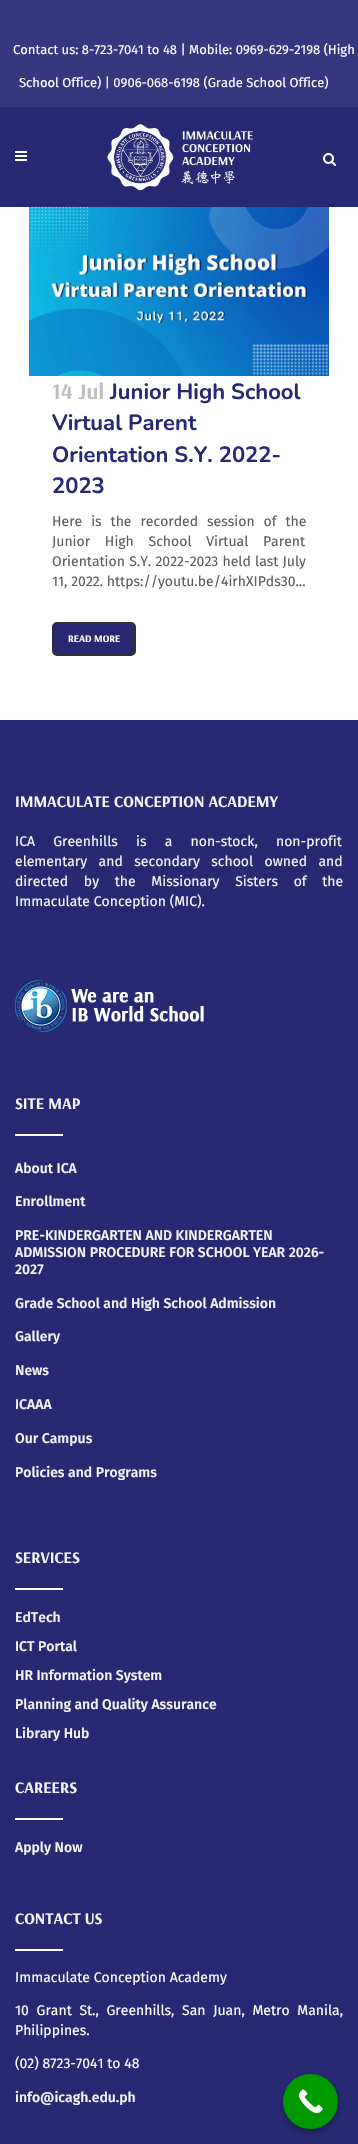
void draw(SkCanvas* canvas) {
  SkPaint paint;
  paint.setAntiAlias(true);
  auto face = [&](const char* family, int weight, float size, bool italic = false) {
    SkFontStyle style(weight, SkFontStyle::kNormal_Width,
      italic ? SkFontStyle::kItalic_Slant : SkFontStyle::kUpright_Slant);
    SkFont result(fontMgr->matchFamilyStyle(family, style), size);
    result.setSubpixel(true);
    return result;
  };
  auto writeSpaced = [&](const char* s, float x, float y, const SkFont& font, const SkPaint& ink, float letter, float word) {
    std::vector<SkGlyphID> glyphs(font.countText(s, strlen(s), SkTextEncoding::kUTF8));
    std::vector<float> xs(glyphs.size());
    font.textToGlyphs(s, strlen(s), SkTextEncoding::kUTF8, glyphs);
    font.getXPos(glyphs, xs, x);
    float extra = 0;
    for (size_t i = 0; i < glyphs.size(); i++) {
      xs[i] += extra;
      extra += letter + word * (glyphs[i] == font.unicharToGlyph(' '));
    }
    canvas->drawTextBlob(SkTextBlob::MakeFromPosHGlyphs(glyphs, xs, y, font), 0, 0, ink);
  };
  auto paste = [&](const char* path, float x, float y, float w, float h) {
    auto image = SkImages::DeferredFromEncodedData(SkData::MakeFromFileName(path));
    canvas->drawImageRect(image, SkRect::MakeXYWH(x, y, w, h), SkSamplingOptions());
  };
  canvas->clear(0xffffffff);
  paint.setColor(0xff36387f);
  canvas->drawRect(SkRect::MakeXYWH(0, 0, 358, 107), paint);
  paint.setColor(0xff272973);
  canvas->drawRect(SkRect::MakeXYWH(0, 107, 358, 100), paint);
  paste("img/1.png", 15, 151, 12, 10);
  paste("img/2.png", 107, 124, 146, 67);
  paste("img/3.png", 323, 153, 13, 13);
  paste("img/4.png", 29, 207, 300, 169);
  canvas->drawRoundRect(SkRect::MakeXYWH(53, 623, 82, 32), 4, 4, paint);
  paint.setStroke(true);
  paint.setStrokeWidth(2);
  paint.setColor(0xff303030);
  canvas->drawRoundRect(SkRect::MakeXYWH(53, 623, 82, 32), 4, 4, paint);
  paint.setStroke(false);
  paint.setColor(0xff272973);
  canvas->drawRect(SkRect::MakeXYWH(0, 720, 358, 1424), paint);
  paste("img/5.png", 15, 980, 189, 52);
  {
    const struct { float x, y, w, h; SkColor color; } items[] = {
      {15, 1134, 48, 2, 0xffffffff},
      {15, 1588, 48, 2, 0xffffffff},
      {15, 1818, 48, 2, 0xffffffff},
      {15, 1949, 48, 2, 0xffffffff},
    };
    for (auto [x, y, w, h, color] : items) {
      paint.setColor(color);
      canvas->drawRect(SkRect::MakeXYWH(x, y, w, h), paint);
    }
  }
  paint.setColor(0x4d000000);
  paint.setMaskFilter(SkMaskFilter::MakeBlur(kNormal_SkBlurStyle, 3));
  canvas->drawRoundRect(SkRect::MakeXYWH(283, 2077, 55, 55), 27.5f, 27.5f, paint);
  paint.setMaskFilter(nullptr);
  paint.setColor(0xff009900);
  canvas->drawCircle(310.5f, 2101.5f, 27.5f, paint);
  paste("img/6.png", 298, 2089, 25, 25);
  auto f0 = face("Fira Sans", 400, 13);
  paint.setColor(0xffffffff);
  canvas->drawString("Contact us: 8-723-7041 to 48 | Mobile: 0969-629-2198 (High", 13, 54, f0, paint);
  canvas->drawString("School Office) | 0906-068-6198 (Grade School Office)", 19, 87, f0, paint);
  auto f1 = face("Arsenal", 700, 22);
  paint.setColor(0xffbebebe);
  canvas->drawString("14 Jul", 52, 399, f1, paint);
  auto f2 = face("Nunito", 700, 22);
  paint.setColor(0xff272973);
  {
    const struct { const char* s; float x, y; } items[] = {
      {"Junior High School", 110, 399},
      {"Virtual Parent", 52, 430},
      {"Orientation S.Y. 2022-", 52, 462},
      {"2023", 52, 493},
    };
    for (auto [s, x, y] : items) {
      canvas->drawString(s, x, y, f2, paint);
    }
  }
  auto f3 = face("Fira Sans", 400, 14);
  paint.setColor(0xff5e5e5e);
  writeSpaced("Here is the recorded session of the", 52, 526, f3, paint, 0, 5.25f);
  writeSpaced("Junior High School Virtual Parent", 52, 546, f3, paint, 0, 11);
  writeSpaced("Orientation S.Y. 2022-2023 held last July", 52, 566, f3, paint, 0, 0.5f);
  canvas->drawString("11, 2022. https://youtu.be/4irhXIPds30...", 52, 586, f3, paint);
  auto f4 = face("Arsenal", 700, 10);
  paint.setColor(0xffffffff);
  canvas->drawString("READ MORE", 68, 642, f4, paint);
  auto f5 = face("Arsenal", 700, 16);
  paint.setColor(0xfff6f6f6);
  canvas->drawString("IMMACULATE CONCEPTION ACADEMY", 15, 807, f5, paint);
  writeSpaced("ICA Greenhills is a non-stock, non-profit", 15, 846, f3, paint, 0, 14.5f);
  writeSpaced("elementary and secondary school owned and", 15, 866, f3, paint, 0, 7.75f);
  writeSpaced("directed by the Missionary Sisters of the", 15, 886, f3, paint, 0, 12);
  canvas->drawString("Immaculate Conception (MIC).", 15, 906, f3, paint);
  canvas->drawString("SITE MAP", 15, 1109, f5, paint);
  auto f6 = face("Fira Sans", 500, 14);
  {
    const struct { const char* s; float x, y; } items[] = {
      {"About ICA", 15, 1173},
      {"Enrollment", 15, 1206},
      {"PRE-KINDERGARTEN AND KINDERGARTEN", 15, 1240},
      {"ADMISSION PROCEDURE FOR SCHOOL YEAR 2026-", 15, 1257},
      {"2027", 15, 1274},
      {"Grade School and High School Admission", 15, 1308},
      {"Gallery", 15, 1341},
      {"News", 15, 1375},
      {"ICAAA", 15, 1409},
      {"Our Campus", 15, 1443},
      {"Policies and Programs", 15, 1477},
    };
    for (auto [s, x, y] : items) {
      canvas->drawString(s, x, y, f6, paint);
    }
  }
  canvas->drawString("SERVICES", 15, 1563, f5, paint);
  {
    const struct { const char* s; float x, y; } items[] = {
      {"EdTech", 15, 1622},
      {"ICT Portal", 15, 1651},
      {"HR Information System", 15, 1680},
      {"Planning and Quality Assurance", 15, 1709},
      {"Library Hub", 15, 1738},
    };
    for (auto [s, x, y] : items) {
      canvas->drawString(s, x, y, f6, paint);
    }
  }
  canvas->drawString("CAREERS", 15, 1793, f5, paint);
  canvas->drawString("Apply Now", 15, 1852, f6, paint);
  canvas->drawString("CONTACT US", 15, 1924, f5, paint);
  paint.setColor(0xffffffff);
  canvas->drawString("Immaculate Conception Academy", 15, 1982, f3, paint);
  writeSpaced("10 Grant St., Greenhills,", 15, 2015, f3, paint, 0, 4);
  writeSpaced("San Juan, Metro Manila,", 182, 2015, f3, paint, 0, 4);
  canvas->drawString("Philippines.", 15, 2035, f3, paint);
  canvas->drawString("(02) 8723-7041 to 48", 15, 2068, f3, paint);
  paint.setColor(0xfff6f6f6);
  canvas->drawString("info@icagh.edu.ph", 15, 2102, f6, paint);
}
